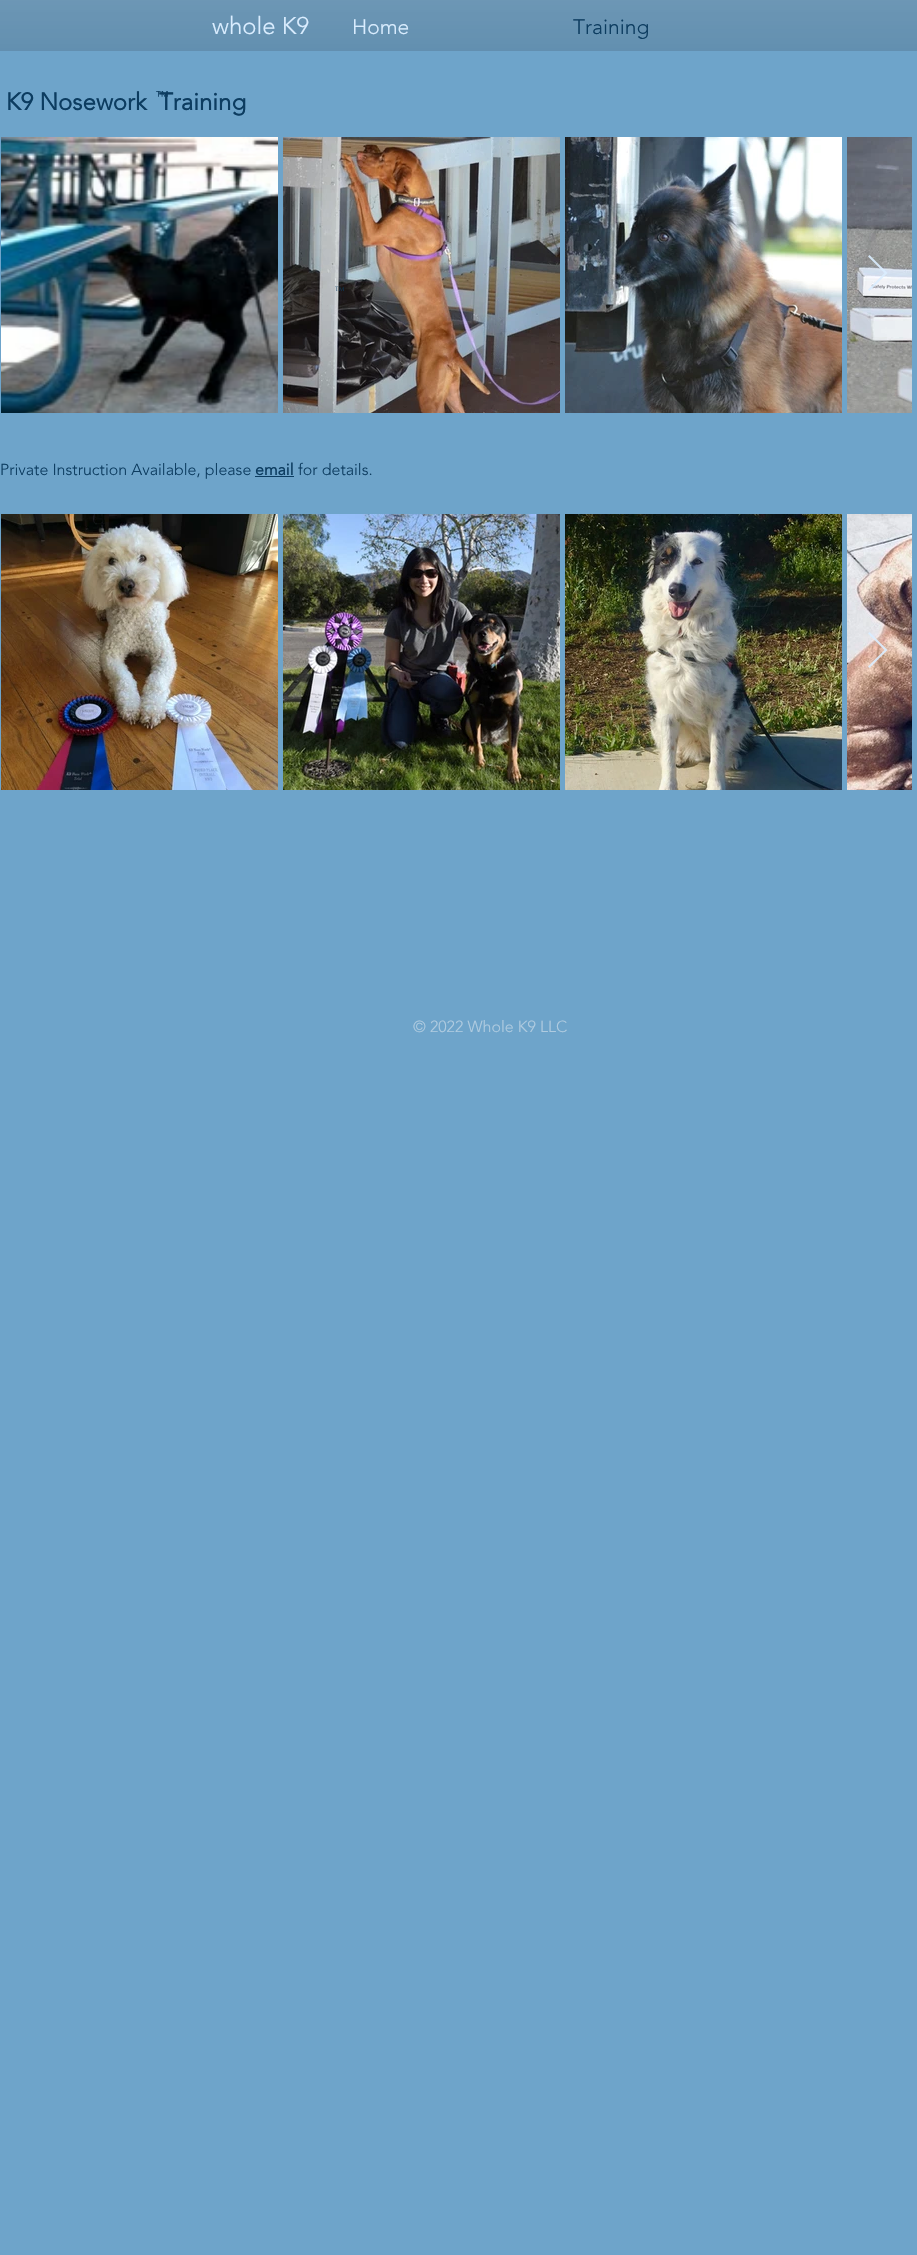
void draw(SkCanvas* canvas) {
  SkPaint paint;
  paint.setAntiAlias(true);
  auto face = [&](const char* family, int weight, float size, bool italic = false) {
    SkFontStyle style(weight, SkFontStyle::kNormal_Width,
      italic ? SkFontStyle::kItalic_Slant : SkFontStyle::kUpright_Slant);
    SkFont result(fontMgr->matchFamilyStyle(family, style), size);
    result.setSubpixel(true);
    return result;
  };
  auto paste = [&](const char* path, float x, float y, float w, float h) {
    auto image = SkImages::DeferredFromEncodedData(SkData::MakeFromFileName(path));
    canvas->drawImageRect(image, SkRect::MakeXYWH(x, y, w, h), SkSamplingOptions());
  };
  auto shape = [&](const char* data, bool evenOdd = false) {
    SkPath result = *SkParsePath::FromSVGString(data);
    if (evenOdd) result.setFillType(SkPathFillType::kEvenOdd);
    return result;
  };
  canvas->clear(0xff6ea4ca);
  paint.setColor(0xff39729b);
  canvas->drawRect(SkRect::MakeXYWH(0, 0, 917, 51), paint);
  paste("img/1.png", 0, 0, 917, 51);
  paste("img/2.png", 1, 137, 277, 276);
  paste("img/3.png", 283, 137, 277, 276);
  paste("img/4.png", 565, 137, 277, 276);
  paste("img/5.png", 847, 137, 65, 276);
  paint.setColor(0xe6daedff);
  canvas->drawPath(shape("M868 256.5L869.5 255L887.5 273L869.5 291L868 289.5L884.5 273Z"), paint);
  paint.setColor(0xff0c3c60);
  canvas->drawRect(SkRect::MakeXYWH(255, 476, 39, 1), paint);
  paste("img/6.png", 1, 514, 277, 276);
  paste("img/7.png", 283, 514, 277, 276);
  paste("img/8.png", 565, 514, 277, 276);
  paste("img/9.png", 847, 514, 65, 276);
  paint.setColor(0xe6daedff);
  canvas->drawPath(shape("M868 633.5L869.5 632L887.5 650L869.5 668L868 666.5L884.5 650Z"), paint);
  auto f0 = face("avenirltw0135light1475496", 300, 24);
  paint.setColor(0xffdaedff);
  canvas->drawString("whole K9", 212, 34, f0, paint);
  auto f1 = face("avenirltw0135light1475496", 300, 21);
  canvas->drawString("Home", 352, 34, f1, paint);
  paint.setColor(0xff0c3c60);
  canvas->drawString("Training", 573, 34, f1, paint);
  auto f2 = face("avenirltw0135light1475496", 700, 24);
  canvas->drawString("K9 Nosework", 6, 110, f2, paint);
  canvas->drawString("Training", 159, 110, f2, paint);
  auto f3 = face("avenirltw0135light1475496", 300, 14);
  canvas->drawString("™", 155, 101, f3, paint);
  auto f4 = face("avenirltw0135light1475496", 300, 16);
  canvas->drawString("Private Instruction Available, please", 0, 475, f4, paint);
  auto f5 = face("avenirltw0135light1475496", 700, 16);
  canvas->drawString("email", 255, 475, f5, paint);
  canvas->drawString("for details.", 298, 475, f4, paint);
  auto f6 = face("Cinzel", 400, 6);
  canvas->drawString("TM", 335, 291, f6, paint);
  paint.setColor(0xffafcbe0);
  canvas->drawString("© 2022 Whole K9 LLC", 413, 1032, f4, paint);
}
